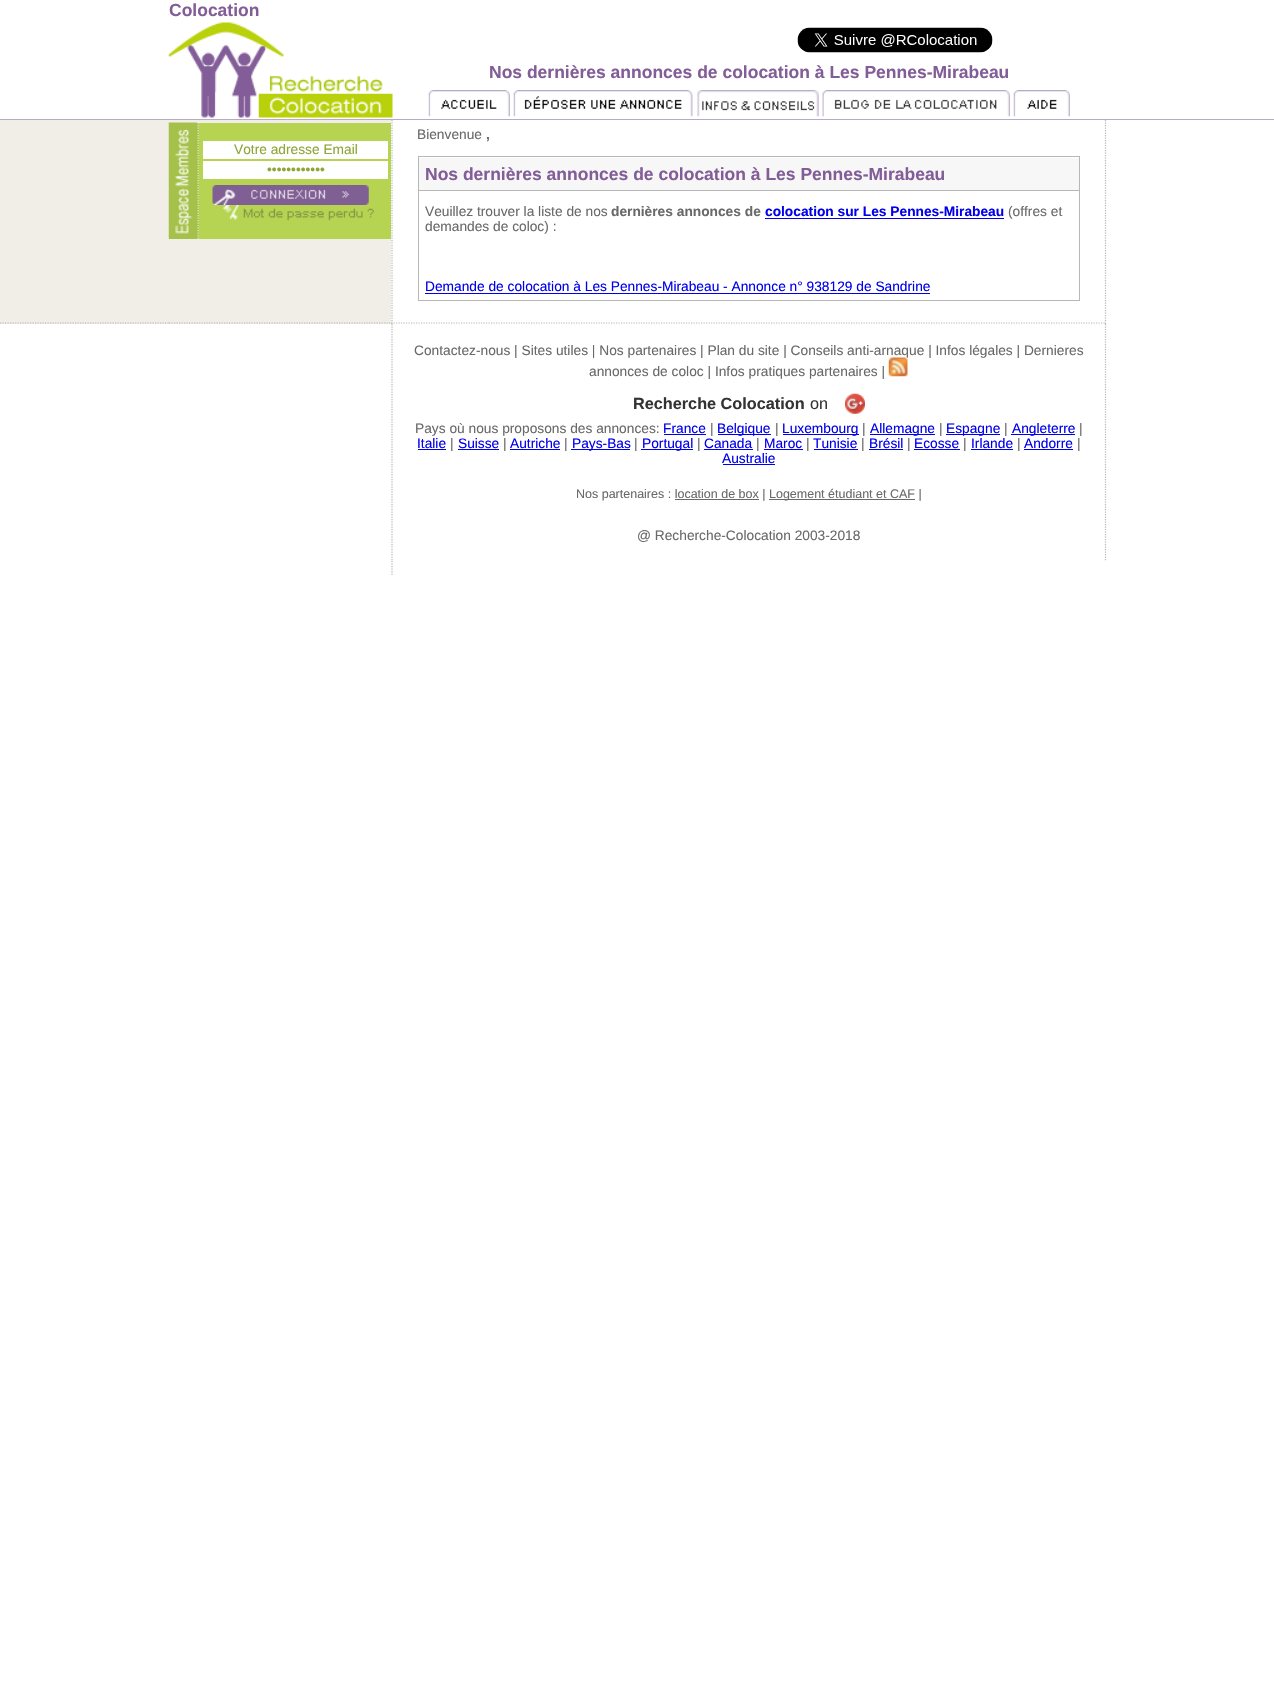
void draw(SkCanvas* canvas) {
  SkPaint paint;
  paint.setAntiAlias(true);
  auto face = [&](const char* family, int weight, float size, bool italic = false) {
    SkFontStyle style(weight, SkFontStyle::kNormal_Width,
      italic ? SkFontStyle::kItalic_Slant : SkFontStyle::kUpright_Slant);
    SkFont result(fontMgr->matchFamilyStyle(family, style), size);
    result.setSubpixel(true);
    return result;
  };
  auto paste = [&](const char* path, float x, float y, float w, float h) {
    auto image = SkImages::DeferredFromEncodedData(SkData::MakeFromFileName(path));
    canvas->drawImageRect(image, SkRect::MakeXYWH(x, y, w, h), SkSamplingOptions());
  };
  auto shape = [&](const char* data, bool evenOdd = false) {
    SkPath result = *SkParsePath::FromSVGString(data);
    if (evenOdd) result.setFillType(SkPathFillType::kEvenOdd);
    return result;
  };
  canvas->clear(0xffffffff);
  paste("img/1.png", 168, 22, 225, 96);
  paste("img/2.png", 797, 27, 196, 26);
  paste("img/3.png", 428, 90, 82, 27);
  paste("img/4.png", 513, 90, 180, 27);
  paste("img/5.png", 697, 90, 122, 27);
  paste("img/6.png", 822, 90, 188, 27);
  paste("img/7.png", 1013, 90, 57, 27);
  paint.setColor(0xffb6abc6);
  canvas->drawRect(SkRect::MakeXYWH(0, 119, 1274, 1), paint);
  paint.setColor(0xfff1eee7);
  canvas->drawRect(SkRect::MakeXYWH(0, 120, 391, 204), paint);
  paint.setStroke(true);
  paint.setStrokeWidth(1.2f);
  paint.setColor(0xffb7b7b7);
  paint.setPathEffect(SkDashPathEffect::Make({{1.25f, 1.25f}}, 0));
  canvas->drawPath(shape("M0 323H169"), paint);
  paint.setPathEffect(nullptr);
  paint.setPathEffect(SkDashPathEffect::Make({{1.25f, 1.25f}}, 0));
  canvas->drawPath(shape("M169 323H391"), paint);
  paint.setPathEffect(nullptr);
  paint.setStroke(false);
  paint.setColor(0xffa6c14a);
  canvas->drawRect(SkRect::MakeXYWH(169, 123, 30, 116), paint);
  paint.setStroke(true);
  paint.setColor(0xffffffff);
  paint.setPathEffect(SkDashPathEffect::Make({{1.25f, 1.25f}}, 0));
  canvas->drawPath(shape("M198 122.5V239"), paint);
  paint.setPathEffect(nullptr);
  paste("img/8.png", 168, 122, 30, 117);
  paint.setStroke(false);
  {
    const struct { float x, y, w, h; SkColor color; } items[] = {
      {199, 123, 192, 116, 0xffb6d451},
      {203, 141, 185, 18, 0xffffffff},
      {203, 161, 185, 18, 0xffffffff},
    };
    for (auto [x, y, w, h, color] : items) {
      paint.setColor(color);
      canvas->drawRect(SkRect::MakeXYWH(x, y, w, h), paint);
    }
  }
  paste("img/9.png", 212, 185, 157, 20);
  paste("img/10.png", 222, 205, 152, 16);
  paint.setStroke(true);
  paint.setColor(0xffb7b7b7);
  paint.setPathEffect(SkDashPathEffect::Make({{1.25f, 1.25f}}, 0));
  canvas->drawPath(shape("M1105.5 120V324"), paint);
  paint.setPathEffect(nullptr);
  paint.setPathEffect(SkDashPathEffect::Make({{1.25f, 1.25f}}, 0));
  canvas->drawPath(shape("M391 323H1106"), paint);
  paint.setPathEffect(nullptr);
  paint.setPathEffect(SkDashPathEffect::Make({{1.25f, 1.25f}}, 0));
  canvas->drawPath(shape("M392 120V324"), paint);
  paint.setPathEffect(nullptr);
  paint.setStrokeWidth(1);
  canvas->drawRect(SkRect::MakeXYWH(418.5f, 156.5f, 661, 144), paint);
  paint.setStroke(false);
  {
    const struct { float x, y, w, h; SkColor color; } items[] = {
      {419, 158, 660, 32, 0xfff7f7f7},
      {419, 190, 660, 1, 0xffb7b7b7},
      {765, 218, 239, 1, 0xff0000ee},
      {425, 293, 505, 1, 0xff0000ee},
    };
    for (auto [x, y, w, h, color] : items) {
      paint.setColor(color);
      canvas->drawRect(SkRect::MakeXYWH(x, y, w, h), paint);
    }
  }
  paint.setStroke(true);
  paint.setStrokeWidth(1.2f);
  paint.setColor(0xffb7b7b7);
  paint.setPathEffect(SkDashPathEffect::Make({{1.25f, 1.25f}}, 0));
  canvas->drawPath(shape("M392 324V561"), paint);
  paint.setPathEffect(nullptr);
  paint.setPathEffect(SkDashPathEffect::Make({{1.25f, 1.25f}}, 0));
  canvas->drawPath(shape("M1105.5 324V561"), paint);
  paint.setPathEffect(nullptr);
  paste("img/12.png", 845, 393, 20, 21);
  paint.setStroke(false);
  {
    const struct { float x, y, w, h; SkColor color; } items[] = {
      {664, 434, 42, 1, 0xff0000ee},
      {718, 434, 53, 1, 0xff0000ee},
      {783, 434, 76, 1, 0xff0000ee},
      {870, 434, 65, 1, 0xff0000ee},
      {946, 434, 54, 1, 0xff0000ee},
      {1011, 434, 64, 1, 0xff0000ee},
      {418, 449, 28, 1, 0xff0000ee},
      {458, 449, 41, 1, 0xff0000ee},
      {510, 449, 50, 1, 0xff0000ee},
      {571, 449, 59, 1, 0xff0000ee},
      {641, 449, 52, 1, 0xff0000ee},
      {704, 449, 49, 1, 0xff0000ee},
      {764, 449, 39, 1, 0xff0000ee},
      {814, 449, 44, 1, 0xff0000ee},
      {869, 449, 34, 1, 0xff0000ee},
      {914, 449, 46, 1, 0xff0000ee},
      {971, 449, 42, 1, 0xff0000ee},
      {1024, 449, 49, 1, 0xff0000ee},
      {723, 464, 52, 1, 0xff0000ee},
      {675, 499, 84, 1, 0xff696969},
      {769, 499, 146, 1, 0xff696969},
    };
    for (auto [x, y, w, h, color] : items) {
      paint.setColor(color);
      canvas->drawRect(SkRect::MakeXYWH(x, y, w, h), paint);
    }
  }
  paint.setStroke(true);
  paint.setColor(0xffb7b7b7);
  paint.setPathEffect(SkDashPathEffect::Make({{1.25f, 1.25f}}, 0));
  canvas->drawPath(shape("M392 561V576"), paint);
  paint.setPathEffect(nullptr);
  auto f0 = face("Liberation Sans", 700, 17.5f);
  paint.setStroke(false);
  paint.setColor(0xff825d98);
  canvas->drawString("Colocation", 169, 16, f0, paint);
  canvas->drawString("Nos dernières annonces de colocation à Les Pennes-Mirabeau", 489, 78, f0, paint);
  auto f1 = face("Liberation Sans", 400, 13.75f);
  paint.setColor(0xff8ca637);
  canvas->drawString("Votre adresse Email", 234, 154, f1, paint);
  canvas->drawString("••••••••••••", 267, 174, f1, paint);
  paint.setColor(0xff696969);
  canvas->drawString("Bienvenue", 417, 139, f1, paint);
  auto f2 = face("Liberation Sans", 700, 13.75f);
  canvas->drawString(",", 486, 139, f2, paint);
  paint.setColor(0xff825d98);
  canvas->drawString("Nos dernières annonces de colocation à Les Pennes-Mirabeau", 425, 180, f0, paint);
  paint.setColor(0xff696969);
  canvas->drawString("Veuillez trouver la liste de nos", 425, 216, f1, paint);
  canvas->drawString("dernières annonces de", 611, 216, f2, paint);
  paint.setColor(0xff0000ee);
  canvas->drawString("colocation sur Les Pennes-Mirabeau", 765, 216, f2, paint);
  paint.setColor(0xff696969);
  canvas->drawString("(offres et", 1008, 216, f1, paint);
  canvas->drawString("demandes de coloc) :", 425, 231, f1, paint);
  paint.setColor(0xff0000ee);
  canvas->drawString("Demande de colocation à Les Pennes-Mirabeau - Annonce n° 938129 de Sandrine", 425, 291, f1, paint);
  paint.setColor(0xff696969);
  canvas->drawString("Contactez-nous | Sites utiles | Nos partenaires | Plan du site | Conseils anti-arnaque | Infos légales | Dernieres", 414, 355, f1, paint);
  canvas->drawString("annonces de coloc | Infos pratiques partenaires |", 589, 376, f1, paint);
  paste("img/11.png", 888, 357, 20, 20);
  auto f3 = face("Liberation Sans", 700, 16.25f);
  paint.setColor(0xff333333);
  canvas->drawString("Recherche Colocation", 633, 409, f3, paint);
  auto f4 = face("Liberation Sans", 400, 16.25f);
  canvas->drawString("on", 810, 409, f4, paint);
  paint.setColor(0xff696969);
  canvas->drawString("Pays où nous proposons des annonces:", 415, 433, f1, paint);
  paint.setColor(0xff0000ee);
  canvas->drawString("France", 663, 433, f1, paint);
  paint.setColor(0xff696969);
  canvas->drawString("|", 710, 433, f1, paint);
  paint.setColor(0xff0000ee);
  canvas->drawString("Belgique", 717, 433, f1, paint);
  paint.setColor(0xff696969);
  canvas->drawString("|", 775, 433, f1, paint);
  paint.setColor(0xff0000ee);
  canvas->drawString("Luxembourg", 782, 433, f1, paint);
  paint.setColor(0xff696969);
  canvas->drawString("|", 862, 433, f1, paint);
  paint.setColor(0xff0000ee);
  canvas->drawString("Allemagne", 870, 433, f1, paint);
  paint.setColor(0xff696969);
  canvas->drawString("|", 939, 433, f1, paint);
  paint.setColor(0xff0000ee);
  canvas->drawString("Espagne", 946, 433, f1, paint);
  paint.setColor(0xff696969);
  canvas->drawString("|", 1004, 433, f1, paint);
  paint.setColor(0xff0000ee);
  canvas->drawString("Angleterre", 1012, 433, f1, paint);
  paint.setColor(0xff696969);
  canvas->drawString("|", 1079, 433, f1, paint);
  paint.setColor(0xff0000ee);
  canvas->drawString("Italie", 417, 448, f1, paint);
  paint.setColor(0xff696969);
  canvas->drawString("|", 450, 448, f1, paint);
  paint.setColor(0xff0000ee);
  canvas->drawString("Suisse", 458, 448, f1, paint);
  paint.setColor(0xff696969);
  canvas->drawString("|", 503, 448, f1, paint);
  paint.setColor(0xff0000ee);
  canvas->drawString("Autriche", 510, 448, f1, paint);
  paint.setColor(0xff696969);
  canvas->drawString("|", 564, 448, f1, paint);
  paint.setColor(0xff0000ee);
  canvas->drawString("Pays-Bas", 572, 448, f1, paint);
  paint.setColor(0xff696969);
  canvas->drawString("|", 634, 448, f1, paint);
  paint.setColor(0xff0000ee);
  canvas->drawString("Portugal", 642, 448, f1, paint);
  paint.setColor(0xff696969);
  canvas->drawString("|", 697, 448, f1, paint);
  paint.setColor(0xff0000ee);
  canvas->drawString("Canada", 704, 448, f1, paint);
  paint.setColor(0xff696969);
  canvas->drawString("|", 756, 448, f1, paint);
  paint.setColor(0xff0000ee);
  canvas->drawString("Maroc", 764, 448, f1, paint);
  paint.setColor(0xff696969);
  canvas->drawString("|", 806, 448, f1, paint);
  paint.setColor(0xff0000ee);
  canvas->drawString("Tunisie", 813, 448, f1, paint);
  paint.setColor(0xff696969);
  canvas->drawString("|", 861, 448, f1, paint);
  paint.setColor(0xff0000ee);
  canvas->drawString("Brésil", 869, 448, f1, paint);
  paint.setColor(0xff696969);
  canvas->drawString("|", 907, 448, f1, paint);
  paint.setColor(0xff0000ee);
  canvas->drawString("Ecosse", 914, 448, f1, paint);
  paint.setColor(0xff696969);
  canvas->drawString("|", 963, 448, f1, paint);
  paint.setColor(0xff0000ee);
  canvas->drawString("Irlande", 971, 448, f1, paint);
  paint.setColor(0xff696969);
  canvas->drawString("|", 1017, 448, f1, paint);
  paint.setColor(0xff0000ee);
  canvas->drawString("Andorre", 1024, 448, f1, paint);
  paint.setColor(0xff696969);
  canvas->drawString("|", 1077, 448, f1, paint);
  paint.setColor(0xff0000ee);
  canvas->drawString("Australie", 722, 463, f1, paint);
  auto f5 = face("Liberation Sans", 400, 12.5f);
  paint.setColor(0xff696969);
  canvas->drawString("Nos partenaires : location de box |", 576, 498, f5, paint);
  canvas->drawString("Logement étudiant et CAF |", 769, 498, f5, paint);
  canvas->drawString("@ Recherche-Colocation 2003-2018", 637, 540, f1, paint);
}
